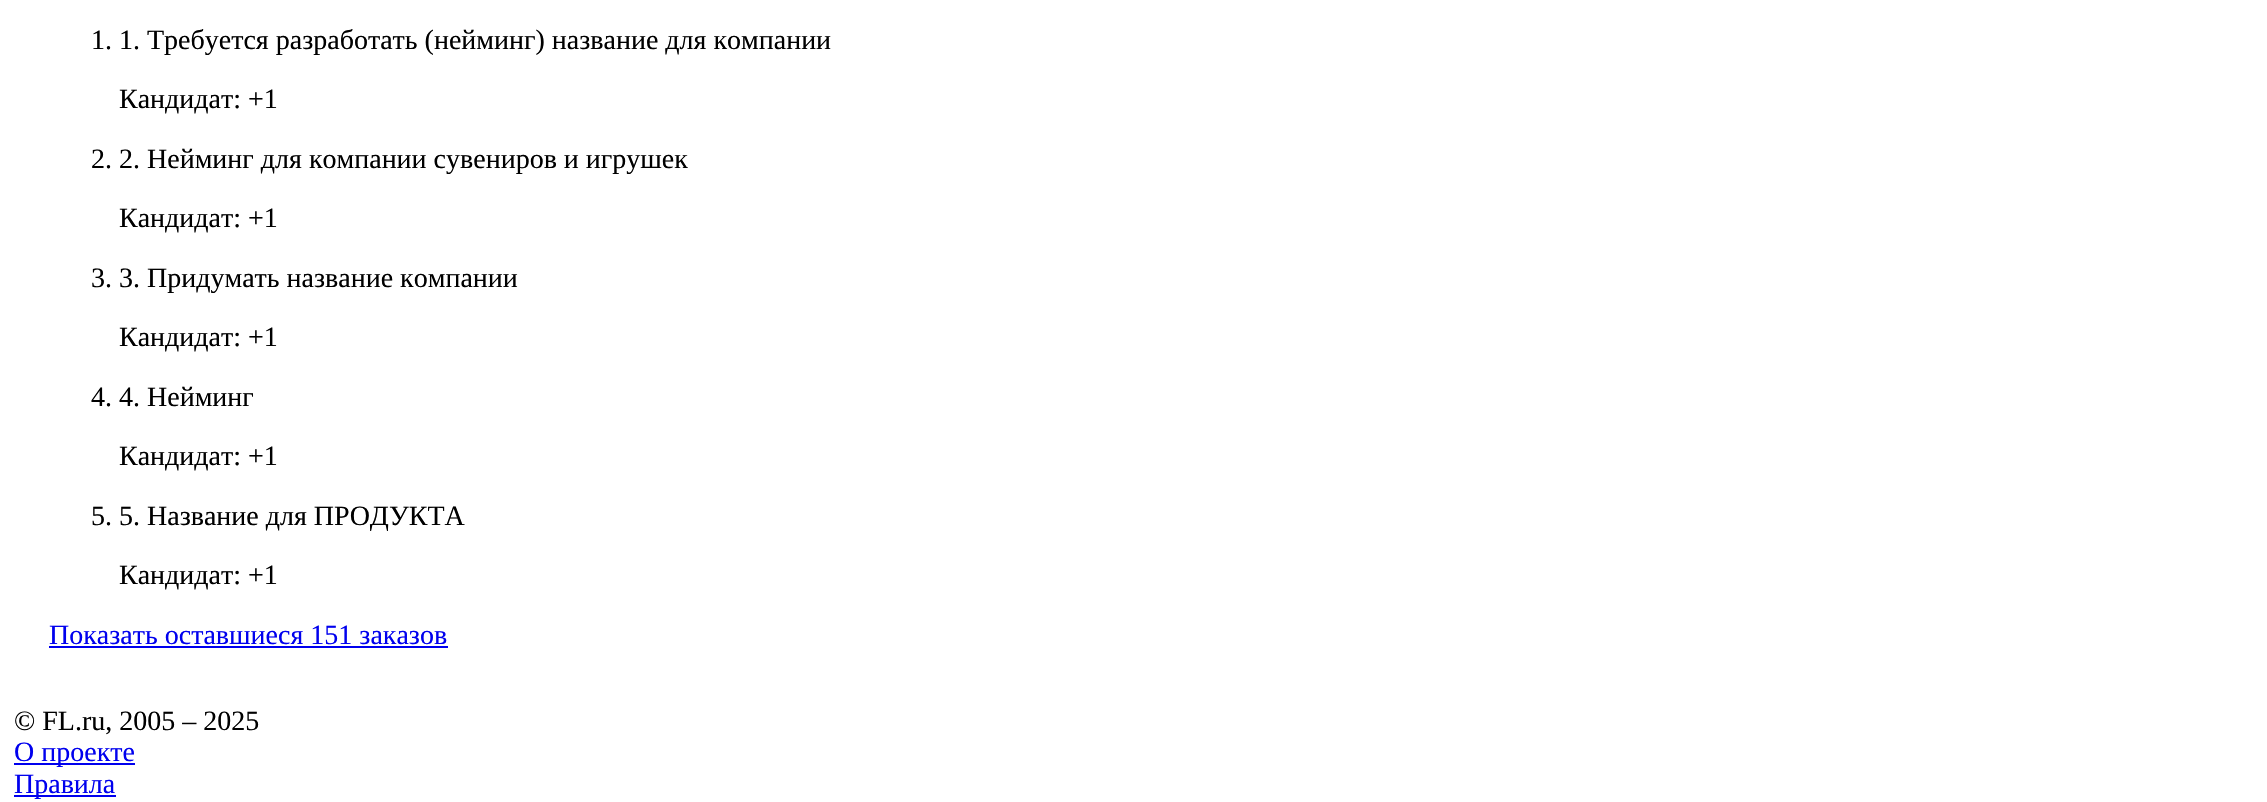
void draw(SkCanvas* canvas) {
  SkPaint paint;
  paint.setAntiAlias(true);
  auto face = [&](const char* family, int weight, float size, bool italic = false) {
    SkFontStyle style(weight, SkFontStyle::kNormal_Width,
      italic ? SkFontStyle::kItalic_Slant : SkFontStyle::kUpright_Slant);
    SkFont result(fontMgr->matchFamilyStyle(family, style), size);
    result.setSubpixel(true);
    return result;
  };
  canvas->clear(0xffffffff);
  {
    const struct { float x, y, w, h; SkColor color; } items[] = {
      {49, 646, 399, 2, 0xff0000ee},
      {14, 763, 121, 2, 0xff0000ee},
      {14, 795, 102, 2, 0xff0000ee},
    };
    for (auto [x, y, w, h, color] : items) {
      paint.setColor(color);
      canvas->drawRect(SkRect::MakeXYWH(x, y, w, h), paint);
    }
  }
  auto f0 = face("Liberation Serif", 400, 28);
  paint.setColor(0xff000000);
  {
    const struct { const char* s; float x, y; } items[] = {
      {"1. 1. Требуется разработать (нейминг) название для компании", 91, 49},
      {"Кандидат: +1", 119, 108},
      {"2. 2. Нейминг для компании сувениров и игрушек", 91, 168},
      {"Кандидат: +1", 119, 227},
      {"3. 3. Придумать название компании", 91, 287},
      {"Кандидат: +1", 119, 346},
      {"4. 4. Нейминг", 91, 406},
      {"Кандидат: +1", 119, 465},
      {"5. 5. Название для ПРОДУКТА", 91, 525},
      {"Кандидат: +1", 119, 584},
    };
    for (auto [s, x, y] : items) {
      canvas->drawString(s, x, y, f0, paint);
    }
  }
  paint.setColor(0xff0000ee);
  canvas->drawString("Показать оставшиеся 151 заказов", 49, 644, f0, paint);
  paint.setColor(0xff000000);
  canvas->drawString("© FL.ru, 2005 – 2025", 14, 730, f0, paint);
  paint.setColor(0xff0000ee);
  canvas->drawString("О проекте", 14, 761, f0, paint);
  canvas->drawString("Правила", 14, 793, f0, paint);
}
